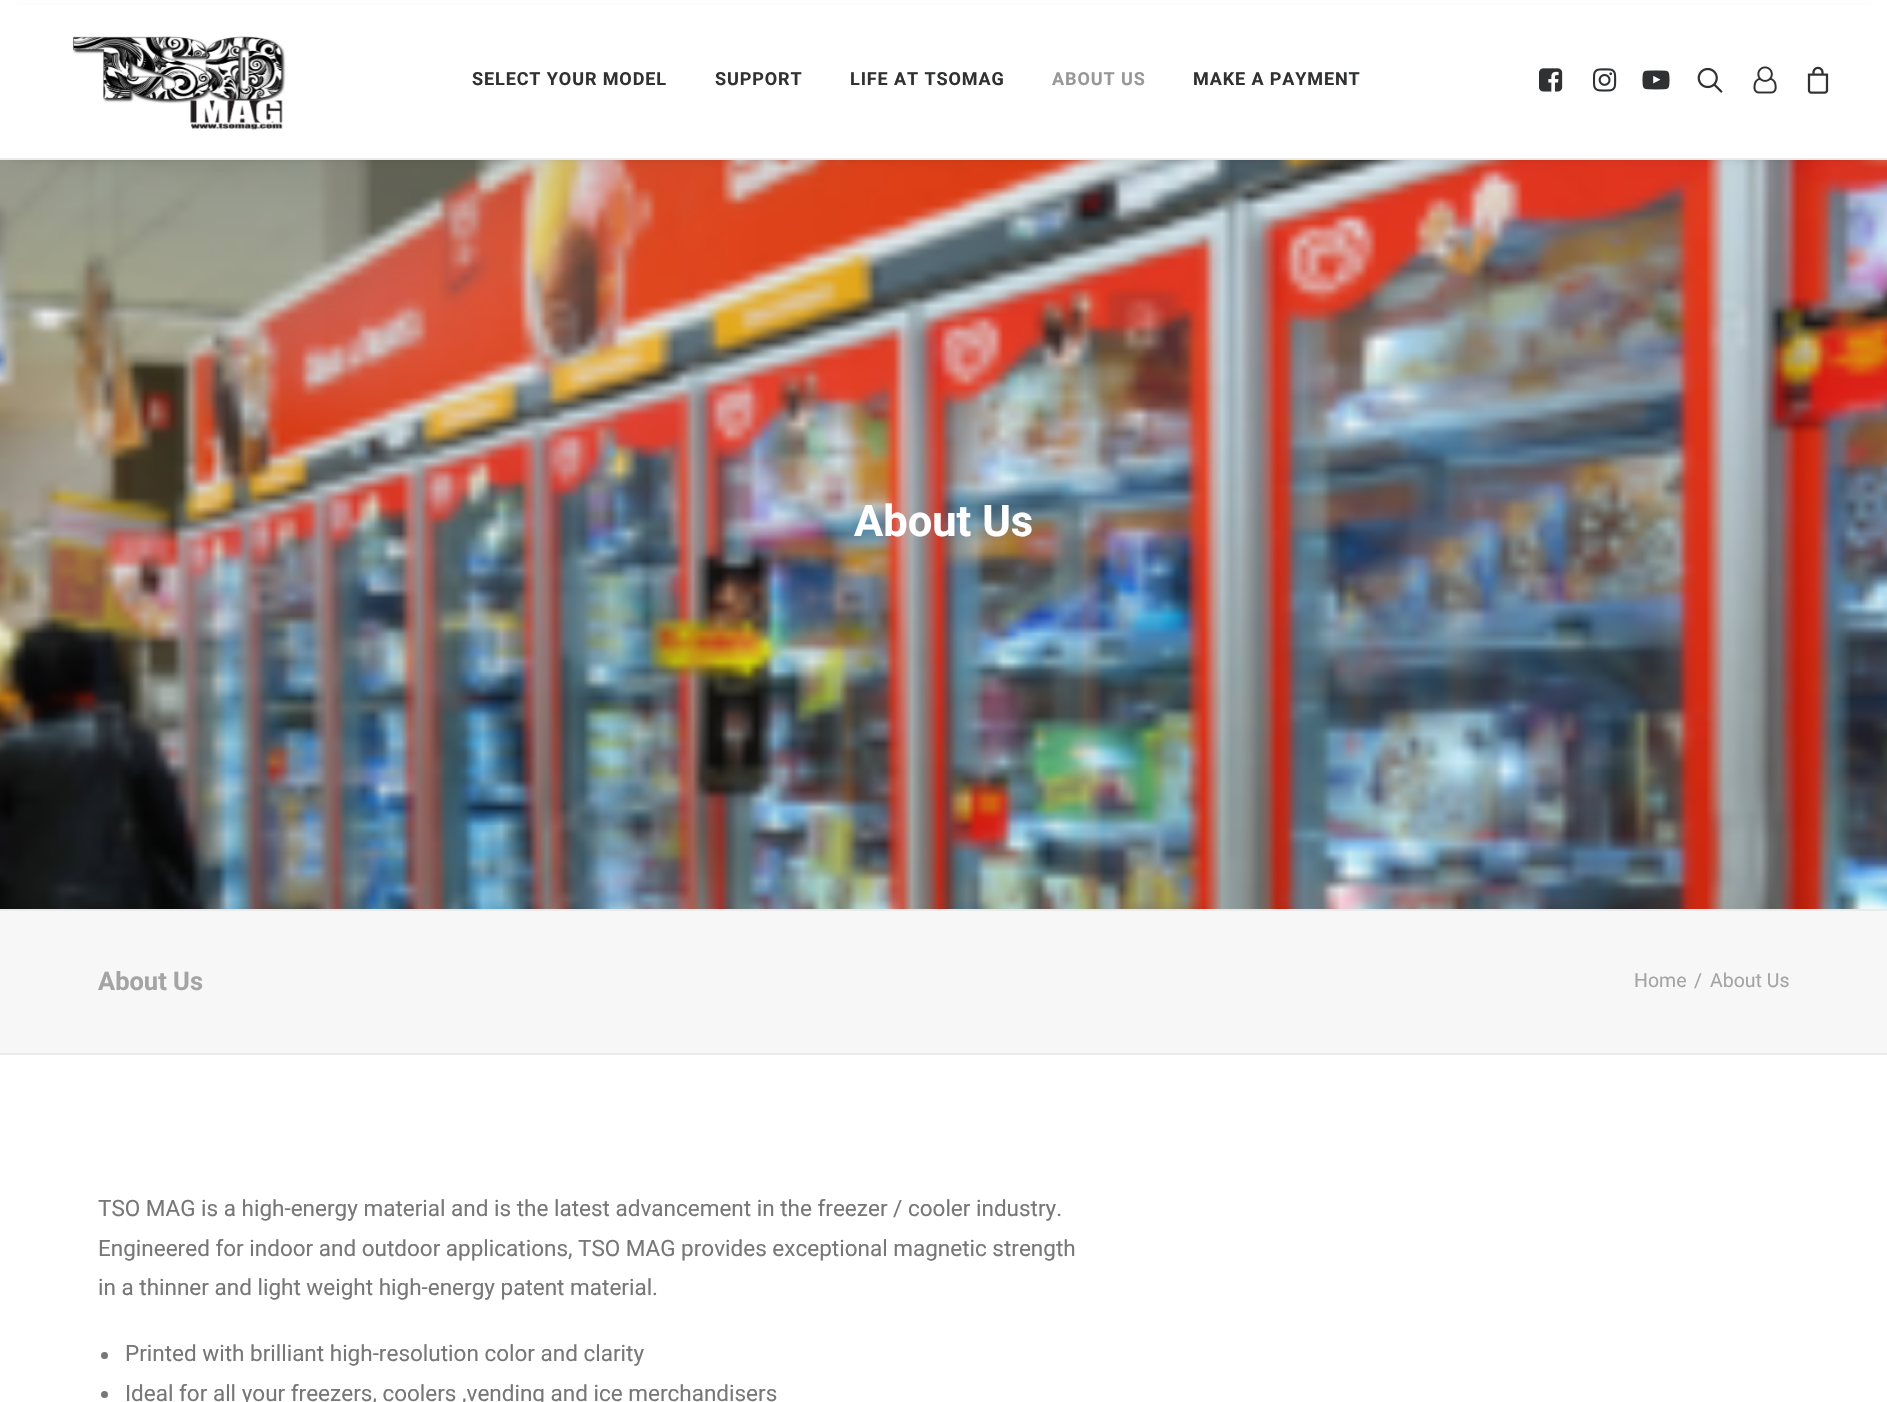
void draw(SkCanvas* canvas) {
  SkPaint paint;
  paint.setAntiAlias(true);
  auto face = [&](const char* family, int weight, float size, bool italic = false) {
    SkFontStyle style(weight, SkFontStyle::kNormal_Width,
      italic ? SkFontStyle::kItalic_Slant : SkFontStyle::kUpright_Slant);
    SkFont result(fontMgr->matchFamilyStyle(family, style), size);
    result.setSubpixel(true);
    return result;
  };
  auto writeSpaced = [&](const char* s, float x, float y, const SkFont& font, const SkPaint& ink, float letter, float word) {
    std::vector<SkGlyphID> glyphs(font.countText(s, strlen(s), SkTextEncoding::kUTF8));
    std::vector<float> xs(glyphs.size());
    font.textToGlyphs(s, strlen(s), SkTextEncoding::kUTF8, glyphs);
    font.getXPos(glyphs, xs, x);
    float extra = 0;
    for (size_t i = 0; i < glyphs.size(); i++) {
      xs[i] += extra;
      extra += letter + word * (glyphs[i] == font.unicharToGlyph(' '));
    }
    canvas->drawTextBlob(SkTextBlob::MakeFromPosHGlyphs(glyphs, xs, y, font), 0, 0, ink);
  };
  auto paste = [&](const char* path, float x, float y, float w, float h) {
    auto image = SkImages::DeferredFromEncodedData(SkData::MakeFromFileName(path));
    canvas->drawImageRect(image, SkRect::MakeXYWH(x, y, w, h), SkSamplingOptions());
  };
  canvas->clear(0xffffffff);
  paste("img/8.png", 0, 160, 1887, 749);
  paint.setColor(0x99000000);
  paint.setMaskFilter(SkMaskFilter::MakeBlur(kNormal_SkBlurStyle, 7.5f));
  canvas->drawRect(SkRect::MakeXYWH(14, 21, 1860, 129), paint);
  paint.setMaskFilter(nullptr);
  paint.setColor(0xffffffff);
  canvas->drawRect(SkRect::MakeXYWH(0, 5, 1887, 153), paint);
  paint.setColor(0xffeaeaea);
  canvas->drawRect(SkRect::MakeXYWH(0, 158, 1887, 2), paint);
  paste("img/1.png", 72, 36, 214, 94);
  paste("img/2.png", 1539, 68, 24, 24);
  paste("img/3.png", 1593, 68, 24, 24);
  paste("img/4.png", 1642, 70, 28, 20);
  paste("img/5.png", 1697, 67, 26, 26);
  paste("img/6.png", 1753, 66, 24, 28);
  paste("img/7.png", 1807, 66, 22, 28);
  {
    const struct { float x, y, w, h; SkColor color; } items[] = {
      {0, 911, 1887, 142, 0xfff7f7f7},
      {0, 909, 1887, 2, 0xffeaeaea},
      {0, 1053, 1887, 2, 0xffeaeaea},
    };
    for (auto [x, y, w, h, color] : items) {
      paint.setColor(color);
      canvas->drawRect(SkRect::MakeXYWH(x, y, w, h), paint);
    }
  }
  paint.setColor(0xff777777);
  canvas->drawCircle(104.5f, 1355.5f, 3.5f, paint);
  canvas->drawCircle(104.5f, 1394.5f, 3.5f, paint);
  auto f0 = face("Roboto", 700, 18);
  paint.setColor(0xff303133);
  {
    const struct { const char* s; float x, y; } items[] = {
      {"SELECT YOUR MODEL", 472, 85},
      {"SUPPORT", 715, 85},
      {"LIFE AT TSOMAG", 850, 85},
    };
    for (auto [s, x, y] : items) {
      writeSpaced(s, x, y, f0, paint, 0.9f, 0);
    }
  }
  paint.setColor(0xff989899);
  writeSpaced("ABOUT US", 1052, 85, f0, paint, 0.9f, 0);
  paint.setColor(0xff303133);
  writeSpaced("MAKE A PAYMENT", 1193, 85, f0, paint, 0.9f, 0);
  auto f1 = face("Roboto", 700, 43.5f);
  paint.setColor(0xffffffff);
  canvas->drawString("About Us", 854, 536, f1, paint);
  auto f2 = face("Roboto", 700, 25.5f);
  paint.setColor(0xffa4a4a4);
  canvas->drawString("About Us", 98, 990, f2, paint);
  auto f3 = face("Roboto", 400, 19.5f);
  {
    const struct { const char* s; float x, y; } items[] = {
      {"Home", 1634, 987},
      {"/", 1694, 987},
      {"About Us", 1710, 987},
    };
    for (auto [s, x, y] : items) {
      canvas->drawString(s, x, y, f3, paint);
    }
  }
  auto f4 = face("Roboto", 400, 22.5f);
  paint.setColor(0xff777777);
  {
    const struct { const char* s; float x, y; } items[] = {
      {"TSO MAG is a high-energy material and is the latest advancement in the freezer / cooler industry.", 98, 1216},
      {"Engineered for indoor and outdoor applications, TSO MAG provides exceptional magnetic strength", 98, 1256},
      {"in a thinner and light weight high-energy patent material.", 98, 1295},
      {"Printed with brilliant high-resolution color and clarity", 125, 1361},
      {"Ideal for all your freezers, coolers ,vending and ice merchandisers", 125, 1401},
    };
    for (auto [s, x, y] : items) {
      canvas->drawString(s, x, y, f4, paint);
    }
  }
}
